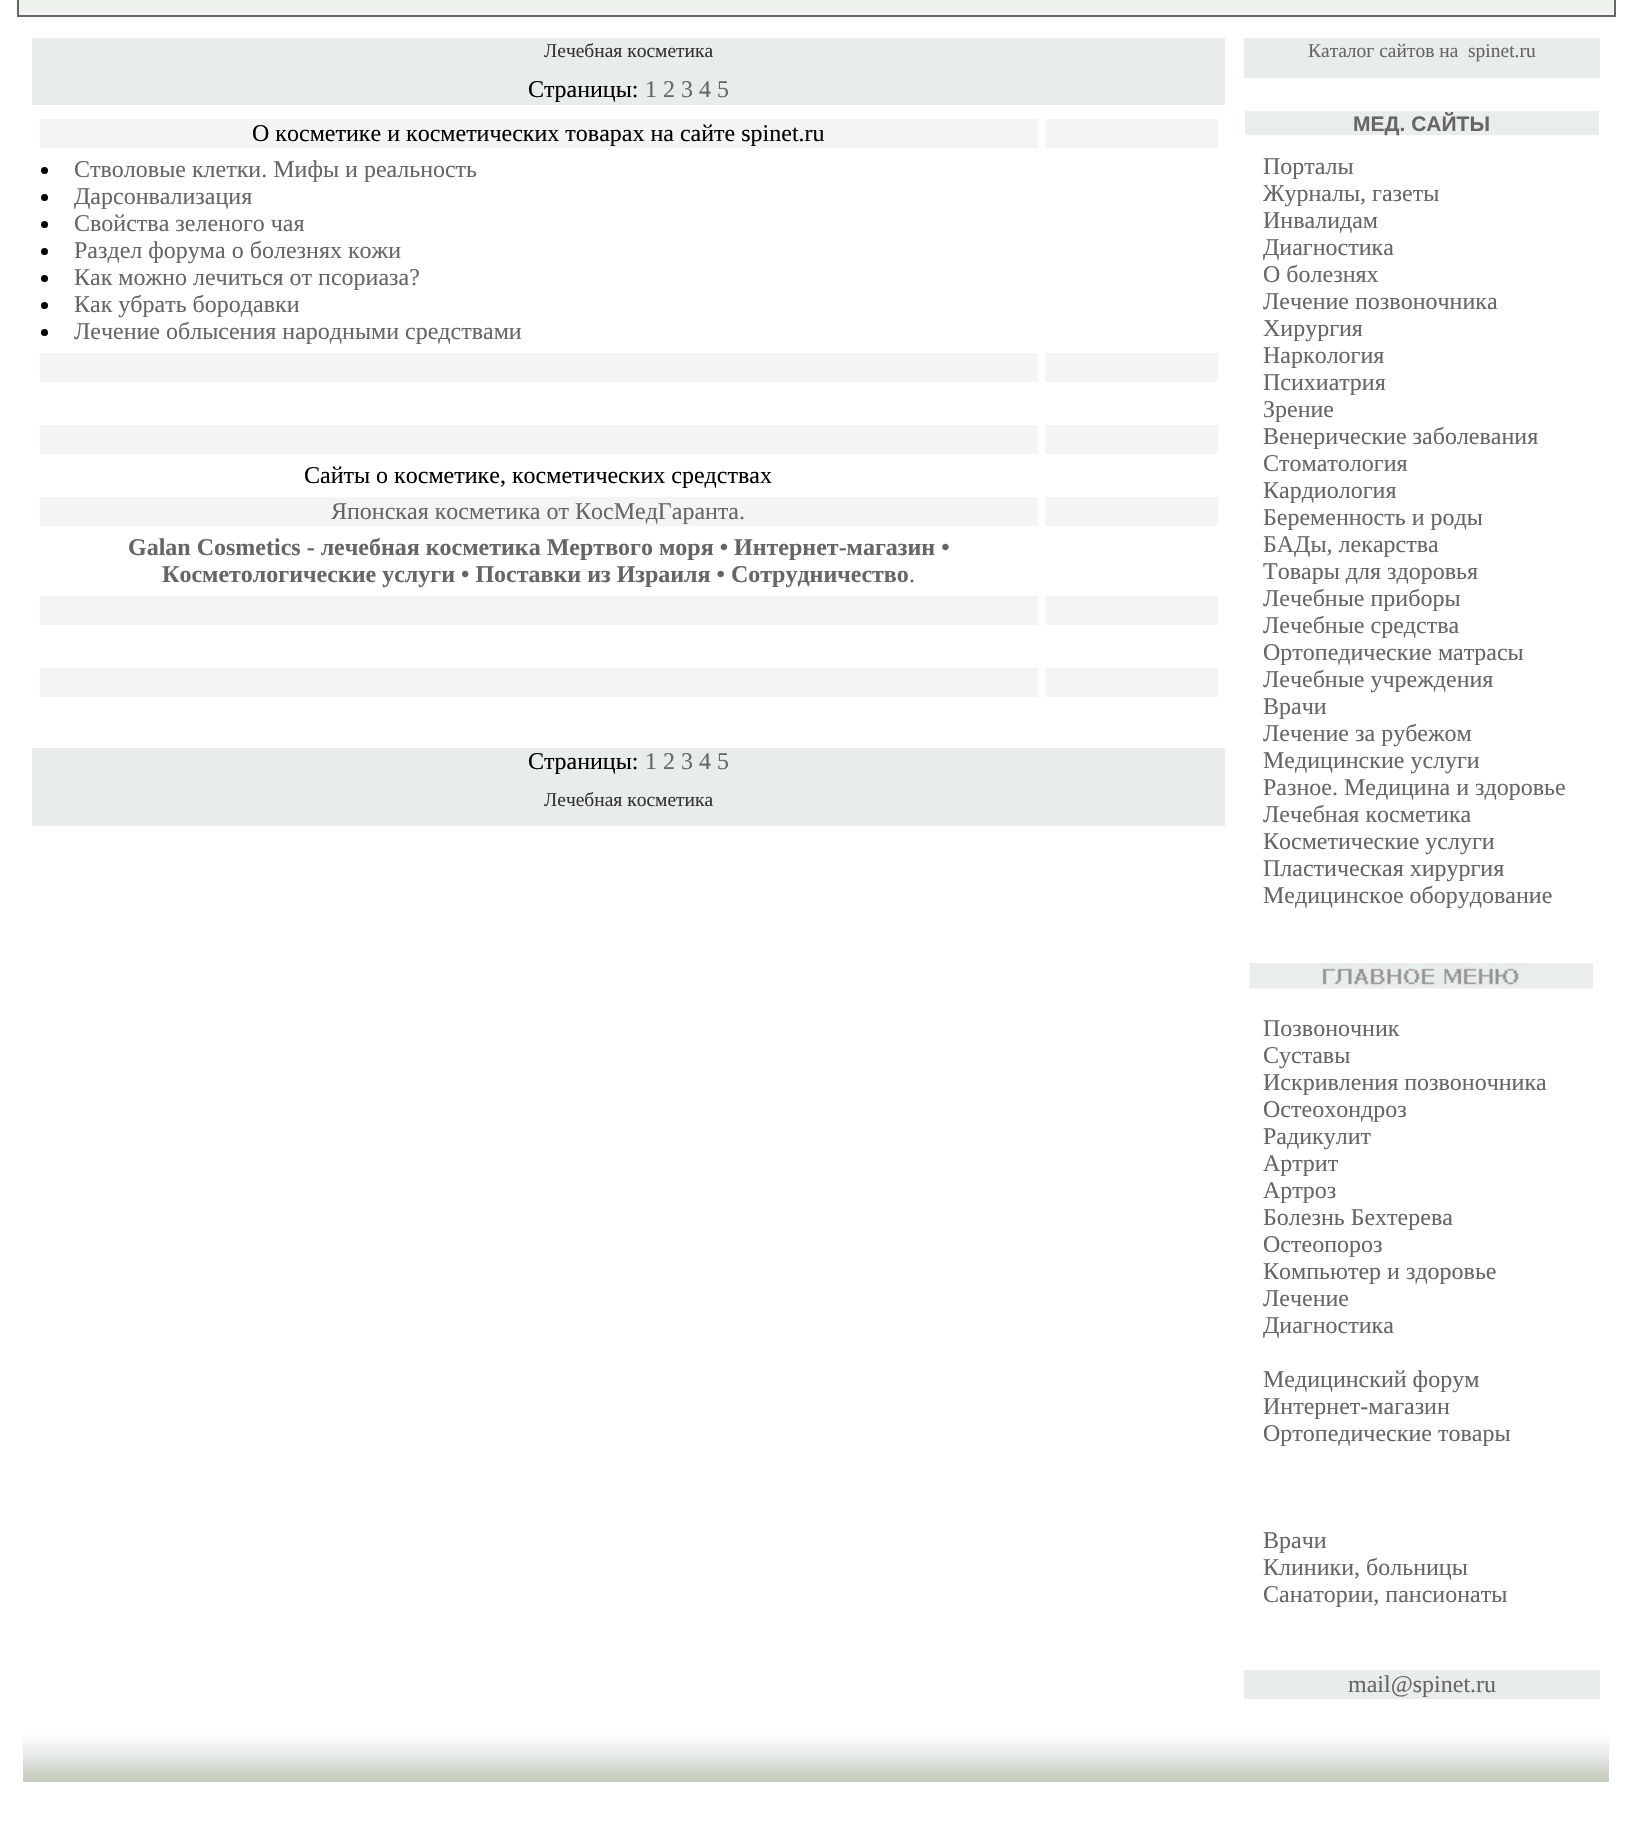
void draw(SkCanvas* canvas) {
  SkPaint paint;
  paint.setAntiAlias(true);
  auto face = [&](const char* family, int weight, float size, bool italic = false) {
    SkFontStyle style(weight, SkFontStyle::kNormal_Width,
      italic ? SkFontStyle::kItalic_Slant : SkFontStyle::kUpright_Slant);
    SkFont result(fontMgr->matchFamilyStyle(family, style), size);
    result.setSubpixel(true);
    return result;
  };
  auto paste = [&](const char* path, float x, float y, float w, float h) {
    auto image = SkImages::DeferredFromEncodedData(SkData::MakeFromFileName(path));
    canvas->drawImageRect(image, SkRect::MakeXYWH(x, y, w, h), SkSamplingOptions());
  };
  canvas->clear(0xffffffff);
  paste("img/1.png", 16, 0, 1598, 17);
  paint.setStroke(true);
  paint.setStrokeWidth(2);
  paint.setColor(0xff666666);
  canvas->drawRect(SkRect::MakeXYWH(18, -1, 1597, 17), paint);
  paint.setStroke(false);
  {
    const struct { float x, y, w, h; SkColor color; } items[] = {
      {32, 38, 1193, 67, 0xffe9ede9},
      {40, 119, 998, 29, 0xfff3f5f3},
      {1045, 119, 173, 29, 0xfff3f5f3},
    };
    for (auto [x, y, w, h, color] : items) {
      paint.setColor(color);
      canvas->drawRect(SkRect::MakeXYWH(x, y, w, h), paint);
    }
  }
  paint.setColor(0xff000000);
  canvas->drawCircle(44.5f, 170.5f, 3.5f, paint);
  canvas->drawCircle(44.5f, 197.5f, 3.5f, paint);
  canvas->drawCircle(44.5f, 224.5f, 3.5f, paint);
  canvas->drawCircle(44.5f, 251.5f, 3.5f, paint);
  canvas->drawCircle(44.5f, 278.5f, 3.5f, paint);
  canvas->drawCircle(44.5f, 305.5f, 3.5f, paint);
  canvas->drawCircle(44.5f, 332.5f, 3.5f, paint);
  {
    const struct { float x, y, w, h; SkColor color; } items[] = {
      {40, 353, 998, 29, 0xfff3f5f3},
      {1045, 353, 173, 29, 0xfff3f5f3},
      {40, 425, 998, 29, 0xfff3f5f3},
      {1045, 425, 173, 29, 0xfff3f5f3},
      {40, 497, 998, 29, 0xfff3f5f3},
      {1045, 497, 173, 29, 0xfff3f5f3},
      {40, 596, 998, 29, 0xfff3f5f3},
      {1045, 596, 173, 29, 0xfff3f5f3},
      {40, 668, 998, 29, 0xfff3f5f3},
      {1045, 668, 173, 29, 0xfff3f5f3},
      {32, 748, 1193, 78, 0xffe9ede9},
      {1244, 38, 356, 40, 0xffe9ede9},
      {1245, 111, 354, 24, 0xffeaeeeb},
    };
    for (auto [x, y, w, h, color] : items) {
      paint.setColor(color);
      canvas->drawRect(SkRect::MakeXYWH(x, y, w, h), paint);
    }
  }
  paste("img/2.png", 1249, 963, 344, 26);
  paint.setColor(0xffe9ede9);
  canvas->drawRect(SkRect::MakeXYWH(1244, 1670, 356, 29), paint);
  paste("img/3.png", 23, 1727, 1586, 55);
  auto f0 = face("Liberation Serif", 400, 19.5f);
  paint.setColor(0xff333333);
  canvas->drawString("Лечебная косметика", 544, 57, f0, paint);
  auto f1 = face("Liberation Serif", 400, 24);
  paint.setColor(0xff000000);
  canvas->drawString("Страницы:", 528, 97, f1, paint);
  paint.setColor(0xff666666);
  canvas->drawString("1 2 3 4 5", 645, 97, f1, paint);
  paint.setColor(0xff000000);
  canvas->drawString("О косметике и косметических товарах на сайте spinet.ru", 252, 141, f1, paint);
  paint.setColor(0xff666666);
  {
    const struct { const char* s; float x, y; } items[] = {
      {"Стволовые клетки. Мифы и реальность", 74, 177},
      {"Дарсонвализация", 74, 204},
      {"Свойства зеленого чая", 74, 231},
      {"Раздел форума о болезнях кожи", 74, 258},
      {"Как можно лечиться от псориаза?", 74, 285},
      {"Как убрать бородавки", 74, 312},
      {"Лечение облысения народными средствами", 74, 339},
    };
    for (auto [s, x, y] : items) {
      canvas->drawString(s, x, y, f1, paint);
    }
  }
  paint.setColor(0xff000000);
  canvas->drawString("Сайты о косметике, косметических средствах", 304, 483, f1, paint);
  paint.setColor(0xff666666);
  canvas->drawString("Японская косметика от КосМедГаранта.", 331, 519, f1, paint);
  auto f2 = face("Liberation Serif", 700, 24);
  canvas->drawString("Galan Cosmetics - лечебная косметика Мертвого моря • Интернет-магазин •", 128, 555, f2, paint);
  canvas->drawString("Косметологические услуги • Поставки из Израиля • Сотрудничество", 162, 582, f2, paint);
  canvas->drawString(".", 909, 582, f1, paint);
  paint.setColor(0xff000000);
  canvas->drawString("Страницы:", 528, 769, f1, paint);
  paint.setColor(0xff666666);
  canvas->drawString("1 2 3 4 5", 645, 769, f1, paint);
  paint.setColor(0xff333333);
  canvas->drawString("Лечебная косметика", 544, 806, f0, paint);
  paint.setColor(0xff666666);
  canvas->drawString("Каталог сайтов на", 1308, 57, f0, paint);
  canvas->drawString("spinet.ru", 1468, 57, f0, paint);
  auto f3 = face("Liberation Sans", 700, 21);
  canvas->drawString("МЕД. САЙТЫ", 1353, 131, f3, paint);
  {
    const struct { const char* s; float x, y; } items[] = {
      {"Порталы", 1263, 174},
      {"Журналы, газеты", 1263, 201},
      {"Инвалидам", 1263, 228},
      {"Диагностика", 1263, 255},
      {"О болезнях", 1263, 282},
      {"Лечение позвоночника", 1263, 309},
      {"Хирургия", 1263, 336},
      {"Наркология", 1263, 363},
      {"Психиатрия", 1263, 390},
      {"Зрение", 1263, 417},
      {"Венерические заболевания", 1263, 444},
      {"Стоматология", 1263, 471},
      {"Кардиология", 1263, 498},
      {"Беременность и роды", 1263, 525},
      {"БАДы, лекарства", 1263, 552},
      {"Товары для здоровья", 1263, 579},
      {"Лечебные приборы", 1263, 606},
      {"Лечебные средства", 1263, 633},
      {"Ортопедические матрасы", 1263, 660},
      {"Лечебные учреждения", 1263, 687},
      {"Врачи", 1263, 714},
      {"Лечение за рубежом", 1263, 741},
      {"Медицинские услуги", 1263, 768},
      {"Разное. Медицина и здоровье", 1263, 795},
      {"Лечебная косметика", 1263, 822},
      {"Косметические услуги", 1263, 849},
      {"Пластическая хирургия", 1263, 876},
      {"Медицинское оборудование", 1263, 903},
      {"Позвоночник", 1263, 1036},
      {"Суставы", 1263, 1063},
      {"Искривления позвоночника", 1263, 1090},
      {"Остеохондроз", 1263, 1117},
      {"Радикулит", 1263, 1144},
      {"Артрит", 1263, 1171},
      {"Артроз", 1263, 1198},
      {"Болезнь Бехтерева", 1263, 1225},
      {"Остеопороз", 1263, 1252},
      {"Компьютер и здоровье", 1263, 1279},
      {"Лечение", 1263, 1306},
      {"Диагностика", 1263, 1333},
      {"Медицинский форум", 1263, 1387},
      {"Интернет-магазин", 1263, 1414},
      {"Ортопедические товары", 1263, 1441},
      {"Врачи", 1263, 1548},
      {"Клиники, больницы", 1263, 1575},
      {"Санатории, пансионаты", 1263, 1602},
      {"mail@spinet.ru", 1348, 1692},
    };
    for (auto [s, x, y] : items) {
      canvas->drawString(s, x, y, f1, paint);
    }
  }
}
